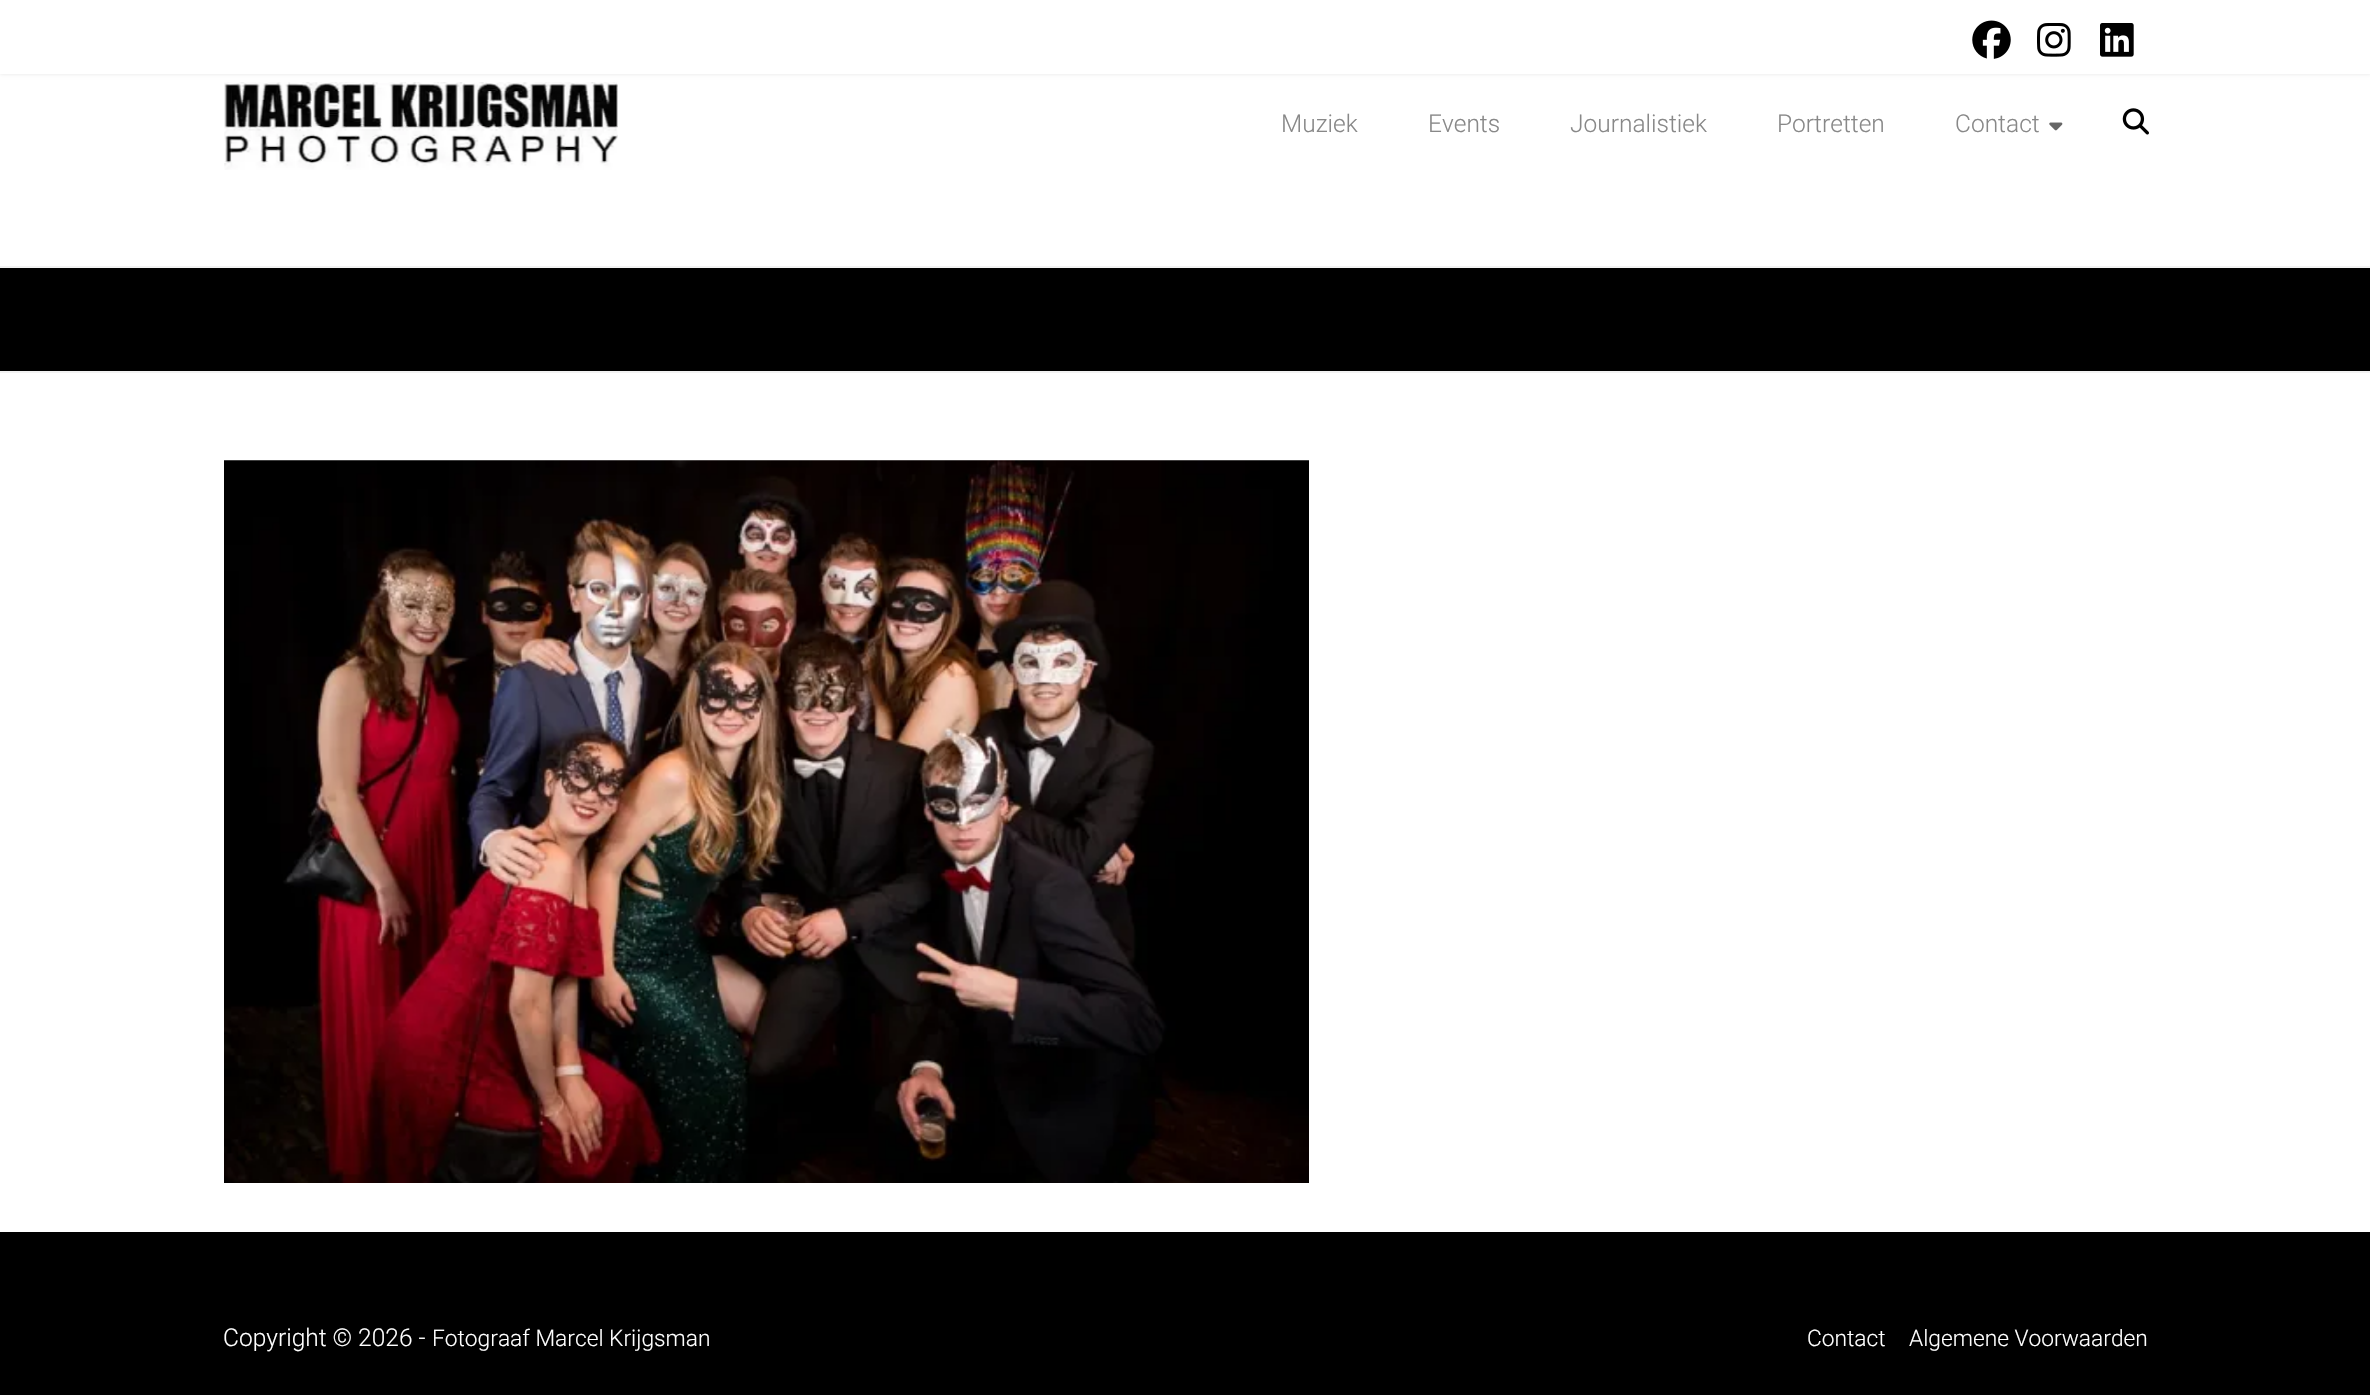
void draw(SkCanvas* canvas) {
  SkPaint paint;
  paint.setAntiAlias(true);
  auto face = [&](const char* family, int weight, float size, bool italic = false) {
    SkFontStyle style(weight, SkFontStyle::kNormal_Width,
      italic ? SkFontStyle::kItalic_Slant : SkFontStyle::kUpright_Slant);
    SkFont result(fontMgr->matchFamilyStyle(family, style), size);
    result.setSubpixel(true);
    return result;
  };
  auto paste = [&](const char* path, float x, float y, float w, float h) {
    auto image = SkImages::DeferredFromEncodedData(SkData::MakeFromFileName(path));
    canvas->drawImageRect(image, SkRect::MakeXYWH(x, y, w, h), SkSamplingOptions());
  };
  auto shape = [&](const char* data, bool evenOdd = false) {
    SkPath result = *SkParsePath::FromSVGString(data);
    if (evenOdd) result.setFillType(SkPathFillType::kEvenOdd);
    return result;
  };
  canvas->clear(0xffffffff);
  paint.setColor(0xfff2f2f2);
  canvas->drawRect(SkRect::MakeXYWH(0, 266, 2370, 2), paint);
  canvas->save();
  canvas->clipPath(shape("M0 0H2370V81H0ZM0 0H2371V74H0Z", true), true);
  paint.setColor(0x1a000000);
  paint.setMaskFilter(SkMaskFilter::MakeBlur(kNormal_SkBlurStyle, 2));
  canvas->drawRect(SkRect::MakeXYWH(0, 0, 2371, 74), paint);
  paint.setMaskFilter(nullptr);
  canvas->restore();
  paste("img/1.png", 1972, 20, 39, 39);
  paste("img/2.png", 2037, 23, 34, 34);
  paste("img/3.png", 2100, 23, 34, 34);
  paste("img/4.png", 224, 82, 394, 88);
  paste("img/5.png", 2049, 122, 14, 9);
  paste("img/6.png", 2122, 108, 27, 27);
  paint.setColor(0xff000000);
  canvas->drawRect(SkRect::MakeXYWH(0, 268, 2370, 103), paint);
  paint.setColor(0xfff2f2f2);
  canvas->drawRect(SkRect::MakeXYWH(0, 371, 2370, 2), paint);
  paste("img/7.png", 224, 460, 1085, 723);
  paint.setColor(0xff000000);
  canvas->drawRect(SkRect::MakeXYWH(0, 1232, 2370, 163), paint);
  auto f0 = face("Roboto", 300, 24.5f);
  paint.setColor(0xff888888);
  {
    const struct { const char* s; float x, y; } items[] = {
      {"Muziek", 1281, 132},
      {"Events", 1428, 132},
      {"Journalistiek", 1570, 132},
      {"Portretten", 1777, 132},
      {"Contact", 1955, 132},
    };
    for (auto [s, x, y] : items) {
      canvas->drawString(s, x, y, f0, paint);
    }
  }
  paint.setColor(0xffffffff);
  canvas->drawString("Copyright © 2026 -", 223, 1346, f0, paint);
  auto f1 = face("Roboto", 300, 22.75f);
  {
    const struct { const char* s; float x, y; } items[] = {
      {"Fotograaf Marcel Krijgsman", 432, 1346},
      {"Contact", 1807, 1346},
      {"Algemene Voorwaarden", 1909, 1346},
    };
    for (auto [s, x, y] : items) {
      canvas->drawString(s, x, y, f1, paint);
    }
  }
}
